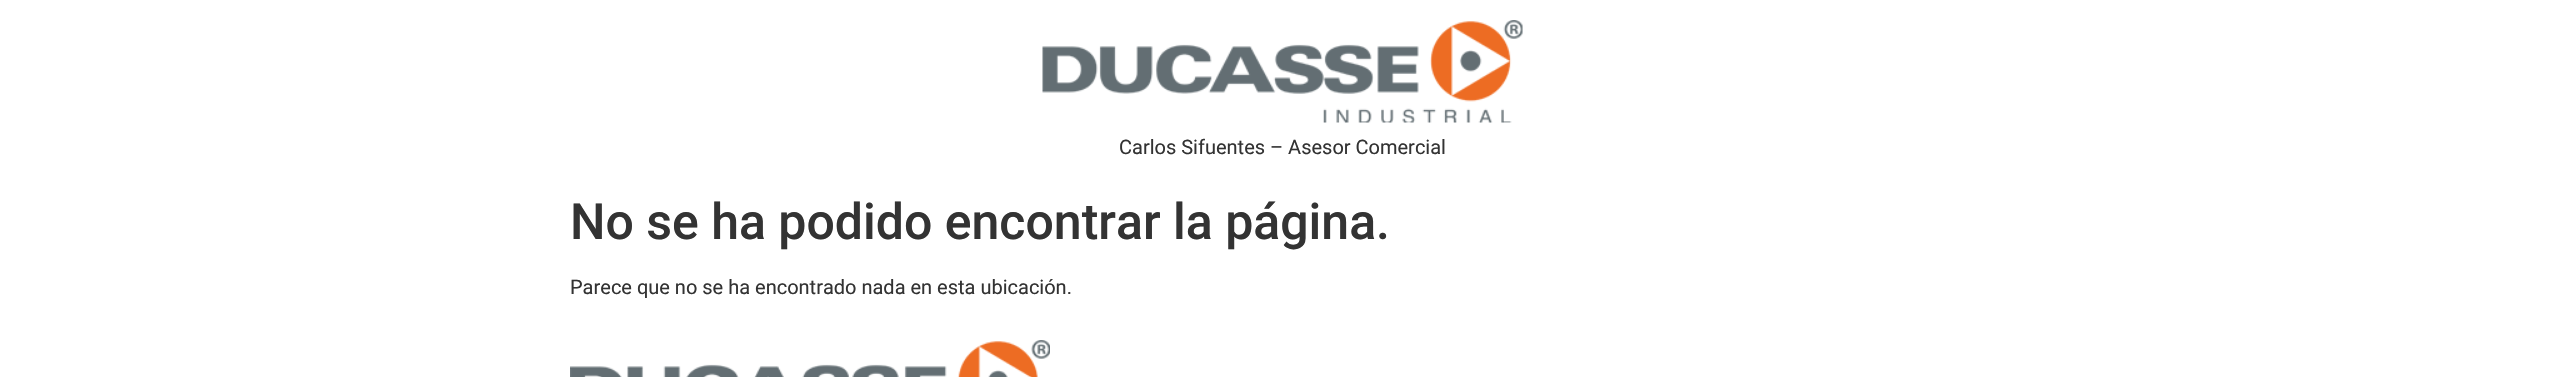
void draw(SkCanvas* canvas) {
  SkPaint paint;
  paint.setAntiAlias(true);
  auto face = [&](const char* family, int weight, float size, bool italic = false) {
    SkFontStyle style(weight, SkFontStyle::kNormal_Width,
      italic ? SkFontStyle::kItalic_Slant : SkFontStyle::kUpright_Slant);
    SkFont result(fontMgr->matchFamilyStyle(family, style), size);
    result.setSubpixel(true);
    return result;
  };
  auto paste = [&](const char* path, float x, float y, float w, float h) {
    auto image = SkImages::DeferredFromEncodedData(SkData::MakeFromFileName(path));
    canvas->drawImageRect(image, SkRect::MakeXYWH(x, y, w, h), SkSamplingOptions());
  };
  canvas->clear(0xffffffff);
  paste("img/1.png", 1042, 20, 481, 103);
  paste("img/2.png", 570, 340, 480, 37);
  auto f0 = face("Roboto", 400, 20);
  paint.setColor(0xff333333);
  canvas->drawString("Carlos Sifuentes – Asesor Comercial", 1119, 154, f0, paint);
  auto f1 = face("Roboto", 500, 50);
  canvas->drawString("No se ha podido encontrar la página.", 570, 239, f1, paint);
  canvas->drawString("Parece que no se ha encontrado nada en esta ubicación.", 570, 294, f0, paint);
}
